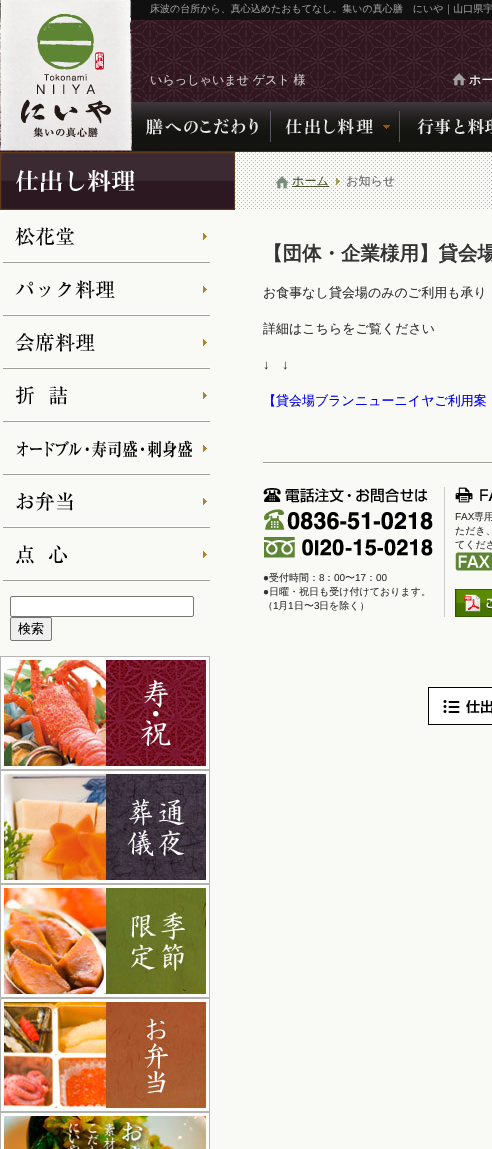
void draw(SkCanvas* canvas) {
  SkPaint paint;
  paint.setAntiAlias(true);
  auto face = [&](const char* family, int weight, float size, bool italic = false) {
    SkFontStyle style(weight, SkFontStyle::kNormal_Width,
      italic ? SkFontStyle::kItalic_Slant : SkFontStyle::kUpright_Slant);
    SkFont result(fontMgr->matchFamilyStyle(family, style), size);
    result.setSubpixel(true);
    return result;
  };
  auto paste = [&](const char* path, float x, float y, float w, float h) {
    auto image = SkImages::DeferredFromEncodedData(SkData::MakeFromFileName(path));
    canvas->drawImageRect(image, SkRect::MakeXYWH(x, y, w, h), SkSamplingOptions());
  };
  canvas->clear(0xff101010);
  paste("img/1.png", 0, 19, 492, 133);
  paste("img/2.png", 0, 0, 132, 151);
  paste("img/3.png", 452, 73, 14, 13);
  paste("img/4.png", 132, 102, 139, 50);
  paste("img/5.png", 271, 102, 129, 50);
  paste("img/6.png", 400, 102, 92, 50);
  paint.setColor(0xfff9f9f6);
  canvas->drawRect(SkRect::MakeXYWH(0, 152, 492, 997), paint);
  paste("img/7.png", 235, 152, 257, 57);
  paste("img/8.png", 275, 176, 14, 13);
  paint.setColor(0xff45532c);
  canvas->drawRect(SkRect::MakeXYWH(292, 186, 37, 1), paint);
  paste("img/9.png", 336, 178, 4, 7);
  paste("img/10.png", 263, 462, 229, 2);
  paste("img/11.png", 455, 487, 37, 16);
  paste("img/12.png", 455, 552, 37, 19);
  paste("img/13.png", 455, 589, 37, 28);
  paint.setColor(0xffcccccc);
  canvas->drawRect(SkRect::MakeXYWH(444, 487, 1, 130), paint);
  paste("img/14.png", 263, 488, 165, 15);
  paste("img/15.png", 264, 509, 169, 49);
  paste("img/16.png", 428, 687, 64, 38);
  paste("img/17.png", 0, 152, 235, 58);
  paste("img/18.png", 3, 227, 207, 36);
  paste("img/19.png", 3, 280, 207, 36);
  paste("img/20.png", 3, 333, 207, 36);
  paste("img/21.png", 3, 386, 207, 36);
  paste("img/22.png", 3, 440, 207, 35);
  paste("img/23.png", 3, 492, 207, 36);
  paste("img/24.png", 3, 545, 207, 36);
  paint.setColor(0xffffffff);
  canvas->drawRoundRect(SkRect::MakeXYWH(10.5f, 596.5f, 183, 20), 1.5f, 1.5f, paint);
  paint.setStroke(true);
  paint.setStrokeWidth(1);
  paint.setColor(0xff767676);
  canvas->drawRoundRect(SkRect::MakeXYWH(10.5f, 596.5f, 183, 20), 1.5f, 1.5f, paint);
  paint.setStroke(false);
  paint.setColor(0xffefefef);
  canvas->drawRoundRect(SkRect::MakeXYWH(10.5f, 617.5f, 41, 23), 1.5f, 1.5f, paint);
  paint.setStroke(true);
  paint.setColor(0xff767676);
  canvas->drawRoundRect(SkRect::MakeXYWH(10.5f, 617.5f, 41, 23), 1.5f, 1.5f, paint);
  paste("img/25.png", 0, 656, 210, 114);
  paste("img/26.png", 0, 770, 210, 114);
  paste("img/27.png", 0, 884, 210, 114);
  paste("img/28.png", 0, 998, 210, 114);
  paste("img/29.png", 0, 1112, 210, 37);
  auto f0 = face("WenQuanYi Zen Hei", 500, 10);
  paint.setStroke(false);
  paint.setColor(0xff999999);
  canvas->drawString("床波の台所から、真心込めたおもてなし。集いの真心膳　にいや｜山口県宇", 150, 12, f0, paint);
  auto f1 = face("WenQuanYi Zen Hei", 500, 12.1f);
  paint.setColor(0xffcccccc);
  canvas->drawString("いらっしゃいませ ゲスト 様", 150, 84, f1, paint);
  paint.setColor(0xffffffff);
  canvas->drawString("ホー", 469, 84, f1, paint);
  paint.setColor(0xff45532c);
  canvas->drawString("ホーム", 292, 185, f1, paint);
  paint.setColor(0xff666666);
  canvas->drawString("お知らせ", 346, 185, f1, paint);
  auto f2 = face("WenQuanYi Zen Hei", 700, 19.5f);
  paint.setColor(0xff333333);
  canvas->drawString("【団体・企業様用】貸会場", 263, 260, f2, paint);
  auto f3 = face("WenQuanYi Zen Hei", 500, 13);
  canvas->drawString("お食事なし貸会場のみのご利用も承り", 263, 297, f3, paint);
  canvas->drawString("詳細はこちらをご覧ください", 263, 333, f3, paint);
  auto f4 = face("Liberation Sans", 400, 13);
  canvas->drawString("↓", 263, 369, f4, paint);
  canvas->drawString("↓", 282, 369, f4, paint);
  paint.setColor(0xff0000ee);
  canvas->drawString("【貸会場ブランニューニイヤご利用案", 263, 405, f3, paint);
  auto f5 = face("Liberation Sans", 400, 10);
  paint.setColor(0xff333333);
  canvas->drawString("FAX", 455, 520, f5, paint);
  {
    const struct { const char* s; float x, y; } items[] = {
      {"専用", 474, 520},
      {"ただき、", 455, 534},
      {"てくださ", 455, 548},
    };
    for (auto [s, x, y] : items) {
      canvas->drawString(s, x, y, f0, paint);
    }
  }
  canvas->drawString("●", 263, 581, f5, paint);
  canvas->drawString("受付時間：", 269, 581, f0, paint);
  canvas->drawString("8", 319, 581, f5, paint);
  canvas->drawString("：", 324, 581, f0, paint);
  canvas->drawString("00", 334, 581, f5, paint);
  canvas->drawString("〜", 345, 581, f0, paint);
  canvas->drawString("17", 355, 581, f5, paint);
  canvas->drawString("：", 366, 581, f0, paint);
  canvas->drawString("00", 376, 581, f5, paint);
  canvas->drawString("●", 263, 595, f5, paint);
  canvas->drawString("日曜・祝日も受け付けております。", 269, 595, f0, paint);
  canvas->drawString("（", 263, 609, f0, paint);
  canvas->drawString("1", 273, 609, f5, paint);
  canvas->drawString("月", 278, 609, f0, paint);
  canvas->drawString("1", 288, 609, f5, paint);
  canvas->drawString("日〜", 294, 609, f0, paint);
  canvas->drawString("3", 314, 609, f5, paint);
  canvas->drawString("日を除く）", 319, 609, f0, paint);
  paint.setColor(0xff000000);
  canvas->drawString("検索", 18, 633, f3, paint);
}
